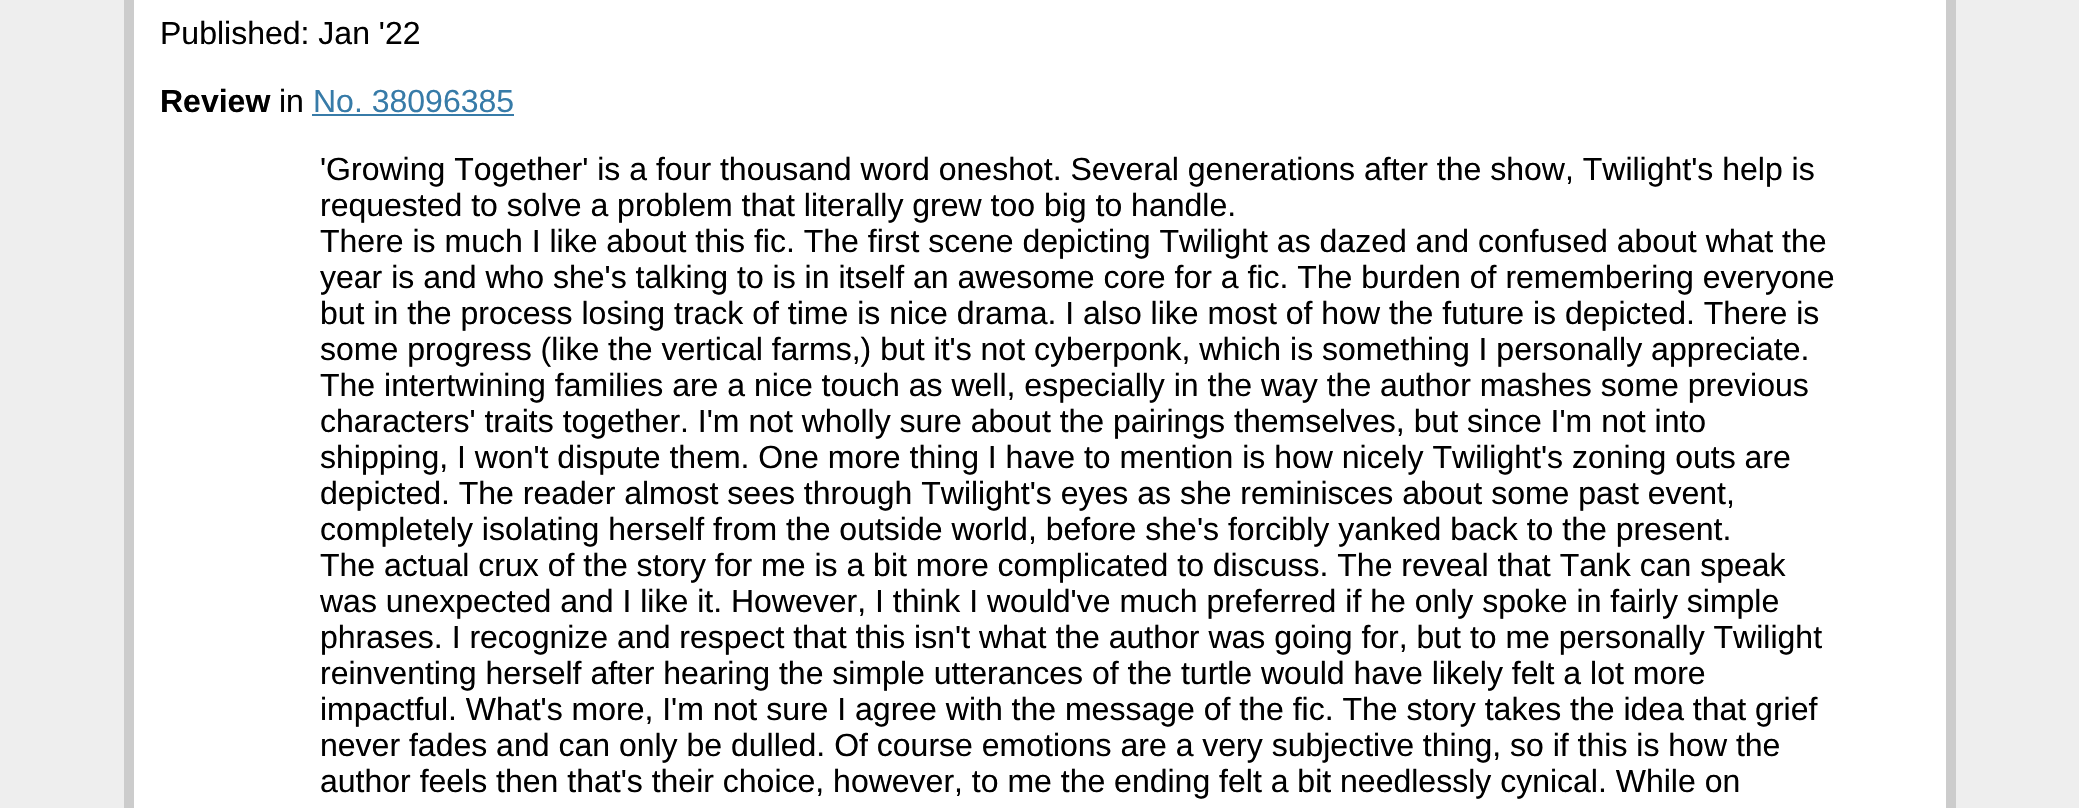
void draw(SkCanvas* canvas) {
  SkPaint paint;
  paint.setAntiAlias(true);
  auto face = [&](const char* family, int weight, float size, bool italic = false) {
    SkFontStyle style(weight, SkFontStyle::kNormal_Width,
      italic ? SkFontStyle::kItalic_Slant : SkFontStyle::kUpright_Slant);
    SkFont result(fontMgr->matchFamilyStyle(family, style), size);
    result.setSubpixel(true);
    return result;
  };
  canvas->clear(0xffeeeeee);
  paint.setColor(0xffffffff);
  canvas->drawRect(SkRect::MakeXYWH(129, -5, 1822, 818), paint);
  paint.setStroke(true);
  paint.setStrokeWidth(10);
  paint.setColor(0xffcccccc);
  canvas->drawRect(SkRect::MakeXYWH(129, -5, 1822, 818), paint);
  paint.setStroke(false);
  paint.setColor(0xff377ba8);
  canvas->drawRect(SkRect::MakeXYWH(312, 114, 202, 2), paint);
  auto f0 = face("Liberation Sans", 400, 32);
  paint.setColor(0xff000000);
  canvas->drawString("Published: Jan '22", 160, 44, f0, paint);
  auto f1 = face("Liberation Sans", 700, 32);
  canvas->drawString("Review", 160, 112, f1, paint);
  canvas->drawString("in", 279, 112, f0, paint);
  paint.setColor(0xff377ba8);
  canvas->drawString("No. 38096385", 313, 112, f0, paint);
  paint.setColor(0xff000000);
  {
    const struct { const char* s; float x, y; } items[] = {
      {"'Growing Together' is a four thousand word oneshot. Several generations after the show, Twilight's help is", 320, 180},
      {"requested to solve a problem that literally grew too big to handle.", 320, 216},
      {"There is much I like about this fic. The first scene depicting Twilight as dazed and confused about what the", 320, 252},
      {"year is and who she's talking to is in itself an awesome core for a fic. The burden of remembering everyone", 320, 288},
      {"but in the process losing track of time is nice drama. I also like most of how the future is depicted. There is", 320, 324},
      {"some progress (like the vertical farms,) but it's not cyberponk, which is something I personally appreciate.", 320, 360},
      {"The intertwining families are a nice touch as well, especially in the way the author mashes some previous", 320, 396},
      {"characters' traits together. I'm not wholly sure about the pairings themselves, but since I'm not into", 320, 432},
      {"shipping, I won't dispute them. One more thing I have to mention is how nicely Twilight's zoning outs are", 320, 468},
      {"depicted. The reader almost sees through Twilight's eyes as she reminisces about some past event,", 320, 504},
      {"completely isolating herself from the outside world, before she's forcibly yanked back to the present.", 320, 540},
      {"The actual crux of the story for me is a bit more complicated to discuss. The reveal that Tank can speak", 320, 576},
      {"was unexpected and I like it. However, I think I would've much preferred if he only spoke in fairly simple", 320, 612},
      {"phrases. I recognize and respect that this isn't what the author was going for, but to me personally Twilight", 320, 648},
      {"reinventing herself after hearing the simple utterances of the turtle would have likely felt a lot more", 320, 684},
      {"impactful. What's more, I'm not sure I agree with the message of the fic. The story takes the idea that grief", 320, 720},
      {"never fades and can only be dulled. Of course emotions are a very subjective thing, so if this is how the", 320, 756},
      {"author feels then that's their choice, however, to me the ending felt a bit needlessly cynical. While on", 320, 792},
    };
    for (auto [s, x, y] : items) {
      canvas->drawString(s, x, y, f0, paint);
    }
  }
}
